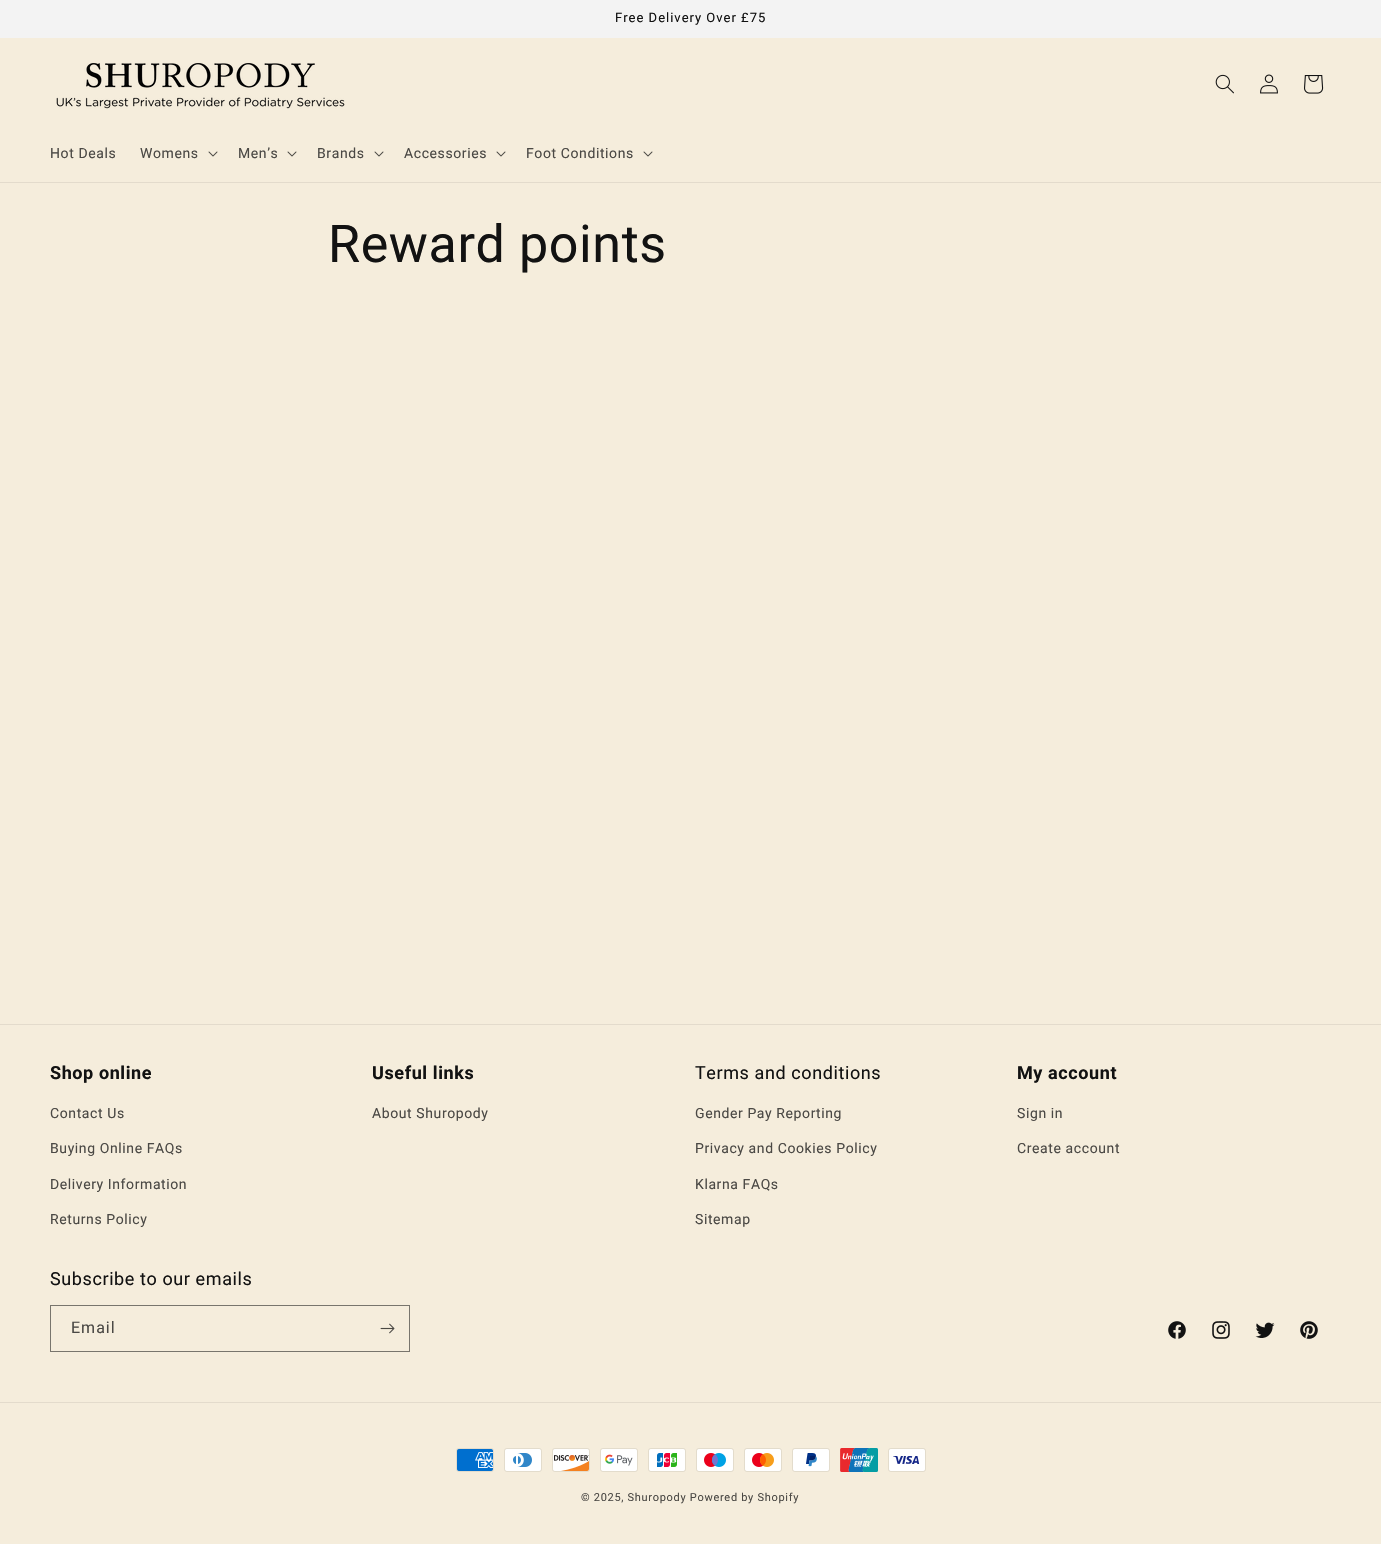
void draw(SkCanvas* canvas) {
  SkPaint paint;
  paint.setAntiAlias(true);
  auto face = [&](const char* family, int weight, float size, bool italic = false) {
    SkFontStyle style(weight, SkFontStyle::kNormal_Width,
      italic ? SkFontStyle::kItalic_Slant : SkFontStyle::kUpright_Slant);
    SkFont result(fontMgr->matchFamilyStyle(family, style), size);
    result.setSubpixel(true);
    return result;
  };
  auto writeSpaced = [&](const char* s, float x, float y, const SkFont& font, const SkPaint& ink, float letter, float word) {
    std::vector<SkGlyphID> glyphs(font.countText(s, strlen(s), SkTextEncoding::kUTF8));
    std::vector<float> xs(glyphs.size());
    font.textToGlyphs(s, strlen(s), SkTextEncoding::kUTF8, glyphs);
    font.getXPos(glyphs, xs, x);
    float extra = 0;
    for (size_t i = 0; i < glyphs.size(); i++) {
      xs[i] += extra;
      extra += letter + word * (glyphs[i] == font.unicharToGlyph(' '));
    }
    canvas->drawTextBlob(SkTextBlob::MakeFromPosHGlyphs(glyphs, xs, y, font), 0, 0, ink);
  };
  auto paste = [&](const char* path, float x, float y, float w, float h) {
    auto image = SkImages::DeferredFromEncodedData(SkData::MakeFromFileName(path));
    canvas->drawImageRect(image, SkRect::MakeXYWH(x, y, w, h), SkSamplingOptions());
  };
  canvas->clear(0xfff5eddc);
  paint.setColor(0xfff3f3f3);
  canvas->drawRect(SkRect::MakeXYWH(0, 0, 1381, 38), paint);
  paint.setColor(0xffe3dbcc);
  canvas->drawRect(SkRect::MakeXYWH(0, 182, 1381, 1), paint);
  paste("img/1.png", 56, 63, 289, 46);
  paste("img/2.png", 1215, 74, 19, 20);
  paste("img/3.png", 1260, 74, 18, 20);
  paste("img/4.png", 1304, 75, 20, 19);
  paste("img/5.png", 208, 151, 10, 6);
  paste("img/5.png", 287, 151, 10, 6);
  paste("img/5.png", 374, 151, 10, 6);
  paste("img/5.png", 496, 151, 10, 6);
  paste("img/5.png", 643, 151, 10, 6);
  canvas->drawRect(SkRect::MakeXYWH(0, 1024, 1381, 1), paint);
  paint.setStroke(true);
  paint.setStrokeWidth(1);
  paint.setColor(0xff78756d);
  canvas->drawRect(SkRect::MakeXYWH(50.5f, 1305.5f, 359, 46), paint);
  paste("img/6.png", 380, 1323, 15, 11);
  paste("img/7.png", 1168, 1321, 18, 18);
  paste("img/8.png", 1212, 1321, 18, 18);
  paste("img/9.png", 1255, 1322, 20, 16);
  paste("img/10.png", 1300, 1321, 18, 18);
  paint.setStroke(false);
  paint.setColor(0xffe3dbcc);
  canvas->drawRect(SkRect::MakeXYWH(0, 1402, 1381, 1), paint);
  paste("img/11.png", 456, 1448, 38, 24);
  paste("img/12.png", 504, 1448, 38, 24);
  paste("img/13.png", 552, 1448, 38, 24);
  paste("img/14.png", 600, 1448, 38, 24);
  paste("img/15.png", 648, 1448, 38, 24);
  paste("img/16.png", 696, 1448, 38, 24);
  paste("img/17.png", 744, 1448, 38, 24);
  paste("img/18.png", 792, 1448, 38, 24);
  paste("img/19.png", 840, 1448, 38, 24);
  paste("img/20.png", 888, 1448, 38, 24);
  auto f0 = face("Roboto", 400, 13);
  paint.setColor(0xff121212);
  writeSpaced("Free Delivery Over £75", 615, 22, f0, paint, 1, 0);
  auto f1 = face("Roboto", 400, 14);
  paint.setColor(0xff4b4945);
  {
    const struct { const char* s; float x, y; } items[] = {
      {"Hot Deals", 50, 158},
      {"Womens", 140, 158},
      {"Men’s", 238, 158},
      {"Brands", 317, 158},
      {"Accessories", 404, 158},
      {"Foot Conditions", 526, 158},
    };
    for (auto [s, x, y] : items) {
      writeSpaced(s, x, y, f1, paint, 0.6f, 0);
    }
  }
  auto f2 = face("Roboto", 400, 52);
  paint.setColor(0xff121212);
  writeSpaced("Reward points", 328, 262, f2, paint, 0.6f, 0);
  auto f3 = face("Roboto", 700, 18);
  writeSpaced("Shop online", 50, 1079, f3, paint, 0.6f, 0);
  paint.setColor(0xff4b4945);
  {
    const struct { const char* s; float x, y; } items[] = {
      {"Contact Us", 50, 1118},
      {"Buying Online FAQs", 50, 1153},
      {"Delivery Information", 50, 1189},
      {"Returns Policy", 50, 1224},
    };
    for (auto [s, x, y] : items) {
      writeSpaced(s, x, y, f1, paint, 0.6f, 0);
    }
  }
  paint.setColor(0xff121212);
  writeSpaced("Useful links", 372, 1079, f3, paint, 0.6f, 0);
  paint.setColor(0xff4b4945);
  writeSpaced("About Shuropody", 372, 1118, f1, paint, 0.6f, 0);
  auto f4 = face("Roboto", 400, 18);
  paint.setColor(0xff121212);
  writeSpaced("Terms and conditions", 695, 1079, f4, paint, 0.6f, 0);
  paint.setColor(0xff4b4945);
  {
    const struct { const char* s; float x, y; } items[] = {
      {"Gender Pay Reporting", 695, 1118},
      {"Privacy and Cookies Policy", 695, 1153},
      {"Klarna FAQs", 695, 1189},
      {"Sitemap", 695, 1224},
    };
    for (auto [s, x, y] : items) {
      writeSpaced(s, x, y, f1, paint, 0.6f, 0);
    }
  }
  paint.setColor(0xff121212);
  writeSpaced("My account", 1017, 1079, f3, paint, 0.6f, 0);
  paint.setColor(0xff4b4945);
  writeSpaced("Sign in", 1017, 1118, f1, paint, 0.6f, 0);
  writeSpaced("Create account", 1017, 1153, f1, paint, 0.6f, 0);
  paint.setColor(0xff121212);
  writeSpaced("Subscribe to our emails", 50, 1285, f4, paint, 0.6f, 0);
  auto f5 = face("Roboto", 400, 16);
  paint.setColor(0xff4b4945);
  writeSpaced("Email", 71, 1333, f5, paint, 1, 0);
  auto f6 = face("Roboto", 400, 11);
  writeSpaced("© 2025, Shuropody Powered by Shopify", 581, 1501, f6, paint, 0.7f, 0);
}
